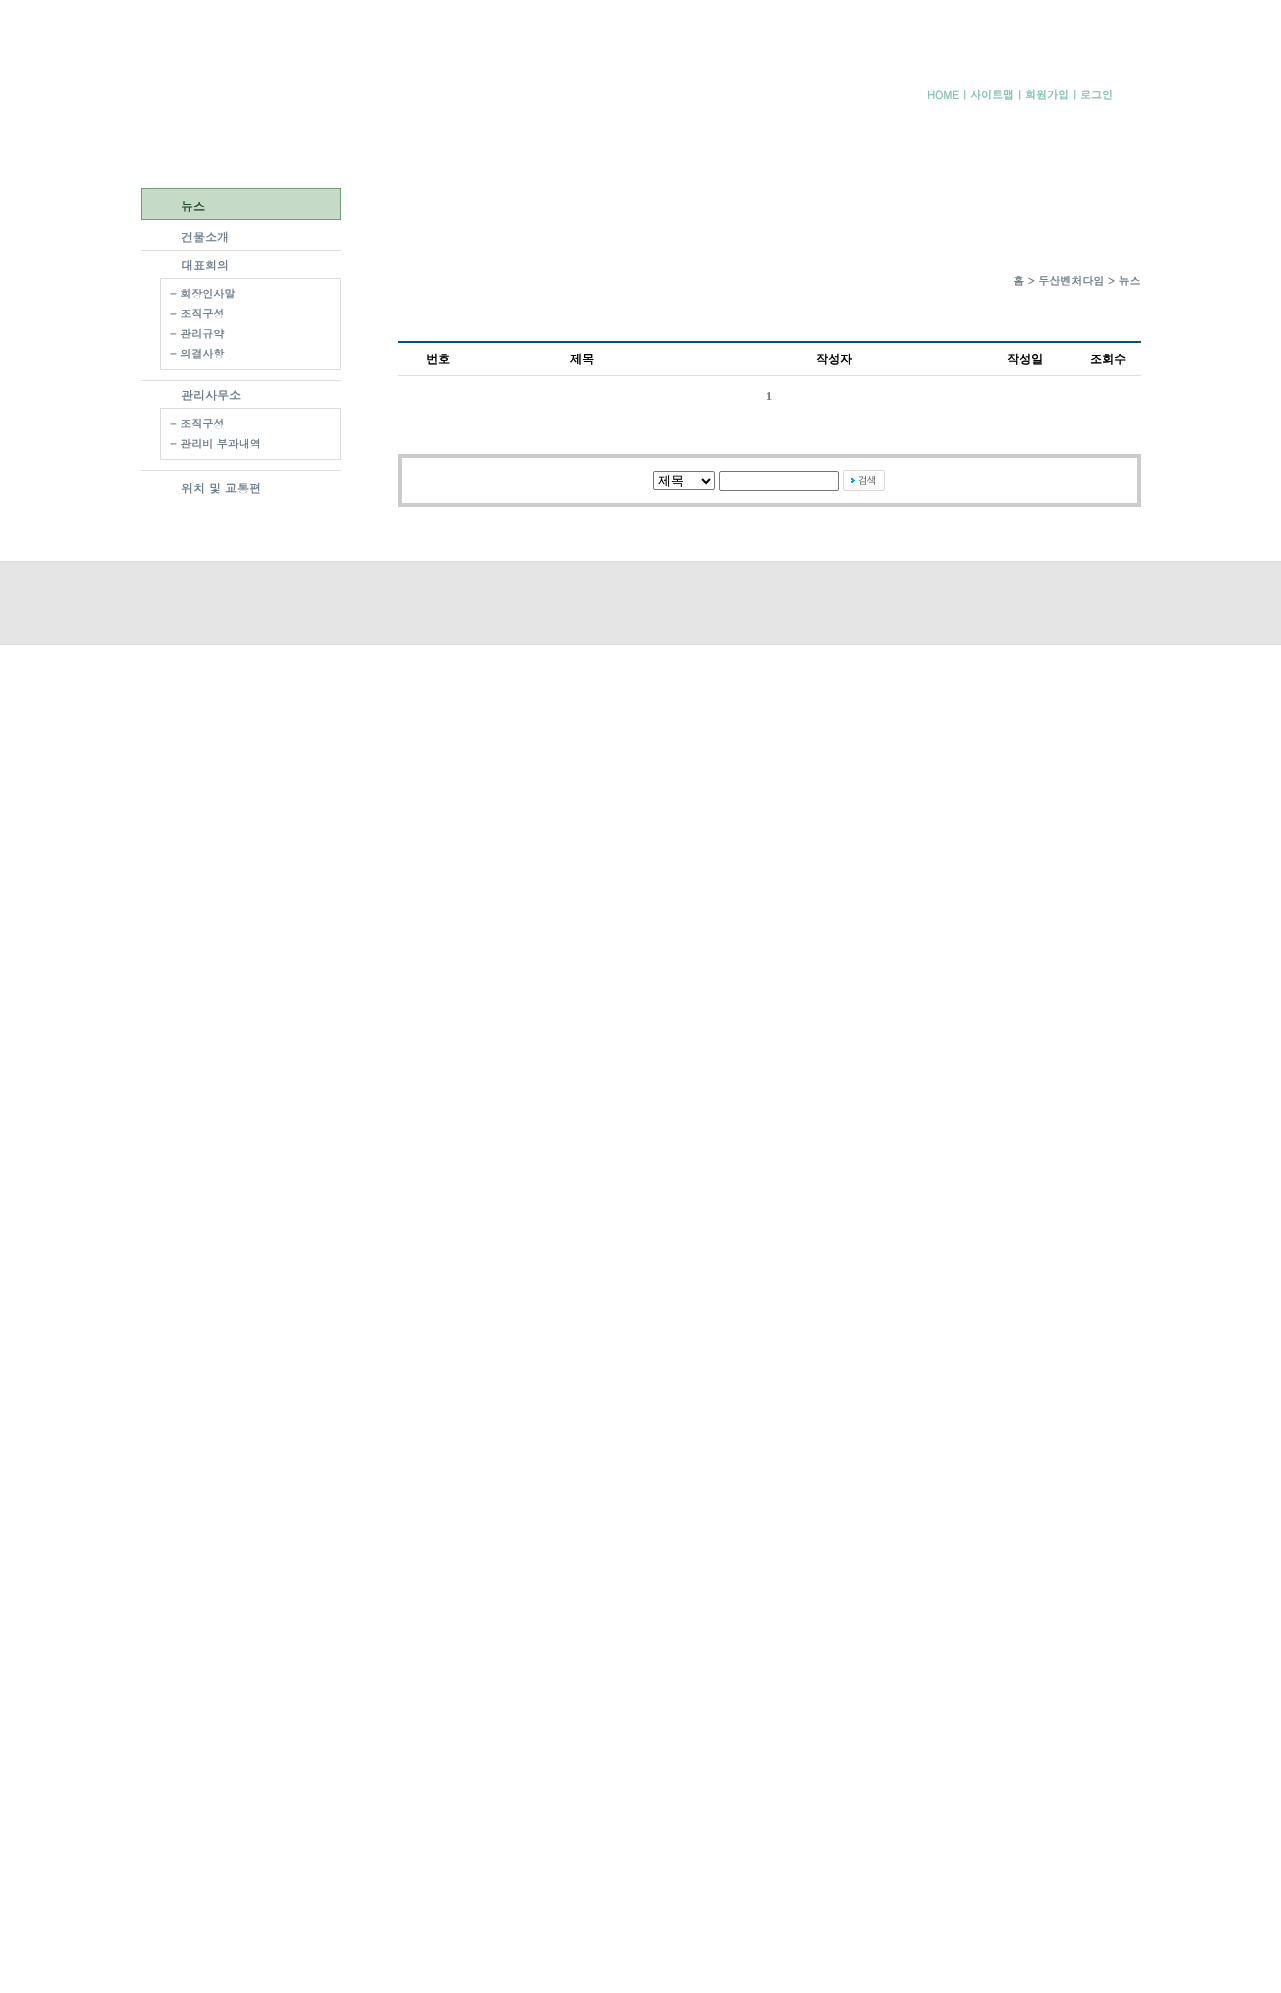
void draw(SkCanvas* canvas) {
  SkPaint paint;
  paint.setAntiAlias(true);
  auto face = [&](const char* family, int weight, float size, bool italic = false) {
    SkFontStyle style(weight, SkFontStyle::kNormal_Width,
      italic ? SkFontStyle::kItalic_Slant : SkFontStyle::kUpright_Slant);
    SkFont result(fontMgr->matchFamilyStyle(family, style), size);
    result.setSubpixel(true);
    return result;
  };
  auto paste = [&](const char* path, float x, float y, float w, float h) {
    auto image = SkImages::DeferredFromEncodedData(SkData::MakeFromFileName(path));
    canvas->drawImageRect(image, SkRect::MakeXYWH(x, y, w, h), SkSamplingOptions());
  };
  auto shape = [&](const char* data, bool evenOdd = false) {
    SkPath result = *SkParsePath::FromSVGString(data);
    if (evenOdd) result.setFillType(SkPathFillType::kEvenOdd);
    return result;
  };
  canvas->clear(0xffffffff);
  {
    const struct { float x, y, w, h; SkColor color; } items[] = {
      {141, 188, 200, 32, 0xff719d73},
      {142, 189, 198, 30, 0xffc6dbc7},
      {141, 250, 200, 1, 0xffdcdcdc},
      {160, 278, 181, 92, 0xffdcdcdc},
      {161, 279, 179, 90, 0xffffffff},
      {141, 380, 200, 1, 0xffdcdcdc},
      {160, 408, 181, 52, 0xffdcdcdc},
      {161, 409, 179, 50, 0xffffffff},
      {141, 470, 200, 1, 0xffdcdcdc},
      {398, 341, 743, 2, 0xff045675},
      {398, 375, 743, 1, 0xffdddddd},
      {398, 454, 743, 53, 0xffcccccc},
      {402, 458, 735, 45, 0xffffffff},
    };
    for (auto [x, y, w, h, color] : items) {
      paint.setColor(color);
      canvas->drawRect(SkRect::MakeXYWH(x, y, w, h), paint);
    }
  }
  paint.setStroke(true);
  paint.setStrokeWidth(1);
  paint.setColor(0xff767676);
  canvas->drawRoundRect(SkRect::MakeXYWH(653.5f, 471.5f, 61, 18), 1.5f, 1.5f, paint);
  paint.setStrokeWidth(2);
  paint.setColor(0xff000000);
  canvas->drawPath(shape("M702 479L706 483L710 479"), paint);
  paint.setStrokeWidth(1);
  paint.setColor(0xff767676);
  canvas->drawRoundRect(SkRect::MakeXYWH(719.5f, 471.5f, 119, 19), 1.5f, 1.5f, paint);
  paste("img/1.png", 843, 470, 42, 21);
  paint.setStroke(false);
  {
    const struct { float x, y, w, h; SkColor color; } items[] = {
      {0, 561, 1281, 1, 0xffdbdbdb},
      {0, 562, 1281, 82, 0xffe5e5e5},
      {0, 644, 1281, 1, 0xffdbdbdb},
    };
    for (auto [x, y, w, h, color] : items) {
      paint.setColor(color);
      canvas->drawRect(SkRect::MakeXYWH(x, y, w, h), paint);
    }
  }
  auto f0 = face("Dotum", 700, 11);
  paint.setColor(0xff7fc1af);
  canvas->drawString("HOMEㅣ사이트맵ㅣ회원가입ㅣ로그인", 927, 99, f0, paint);
  auto f1 = face("Dotum", 700, 12);
  paint.setColor(0xff284d2c);
  canvas->drawString("뉴스", 181, 211, f1, paint);
  paint.setColor(0xff6d7e8d);
  canvas->drawString("건물소개", 181, 242, f1, paint);
  canvas->drawString("대표회의", 181, 270, f1, paint);
  {
    const struct { const char* s; float x, y; } items[] = {
      {"- 회장인사말", 170, 298},
      {"- 조직구성", 170, 318},
      {"- 관리규약", 170, 338},
      {"- 의결사항", 170, 358},
    };
    for (auto [s, x, y] : items) {
      canvas->drawString(s, x, y, f0, paint);
    }
  }
  canvas->drawString("관리사무소", 181, 400, f1, paint);
  canvas->drawString("- 조직구성", 170, 428, f0, paint);
  canvas->drawString("- 관리비 부과내역", 170, 448, f0, paint);
  canvas->drawString("위치 및 교통편", 181, 493, f1, paint);
  canvas->drawString("홈 > 두산벤처다임 > 뉴스", 1013, 285, f0, paint);
  auto f2 = face("WenQuanYi Zen Hei", 700, 12);
  paint.setColor(0xff000000);
  {
    const struct { const char* s; float x, y; } items[] = {
      {"번호", 426, 363},
      {"제목", 570, 363},
      {"작성자", 816, 363},
      {"작성일", 1007, 363},
      {"조회수", 1090, 363},
    };
    for (auto [s, x, y] : items) {
      canvas->drawString(s, x, y, f2, paint);
    }
  }
  auto f3 = face("Liberation Serif", 700, 12);
  paint.setColor(0xff777777);
  canvas->drawString("1", 766, 400, f3, paint);
  auto f4 = face("WenQuanYi Zen Hei", 500, 13);
  paint.setColor(0xff000000);
  canvas->drawString("제목", 658, 485, f4, paint);
}
